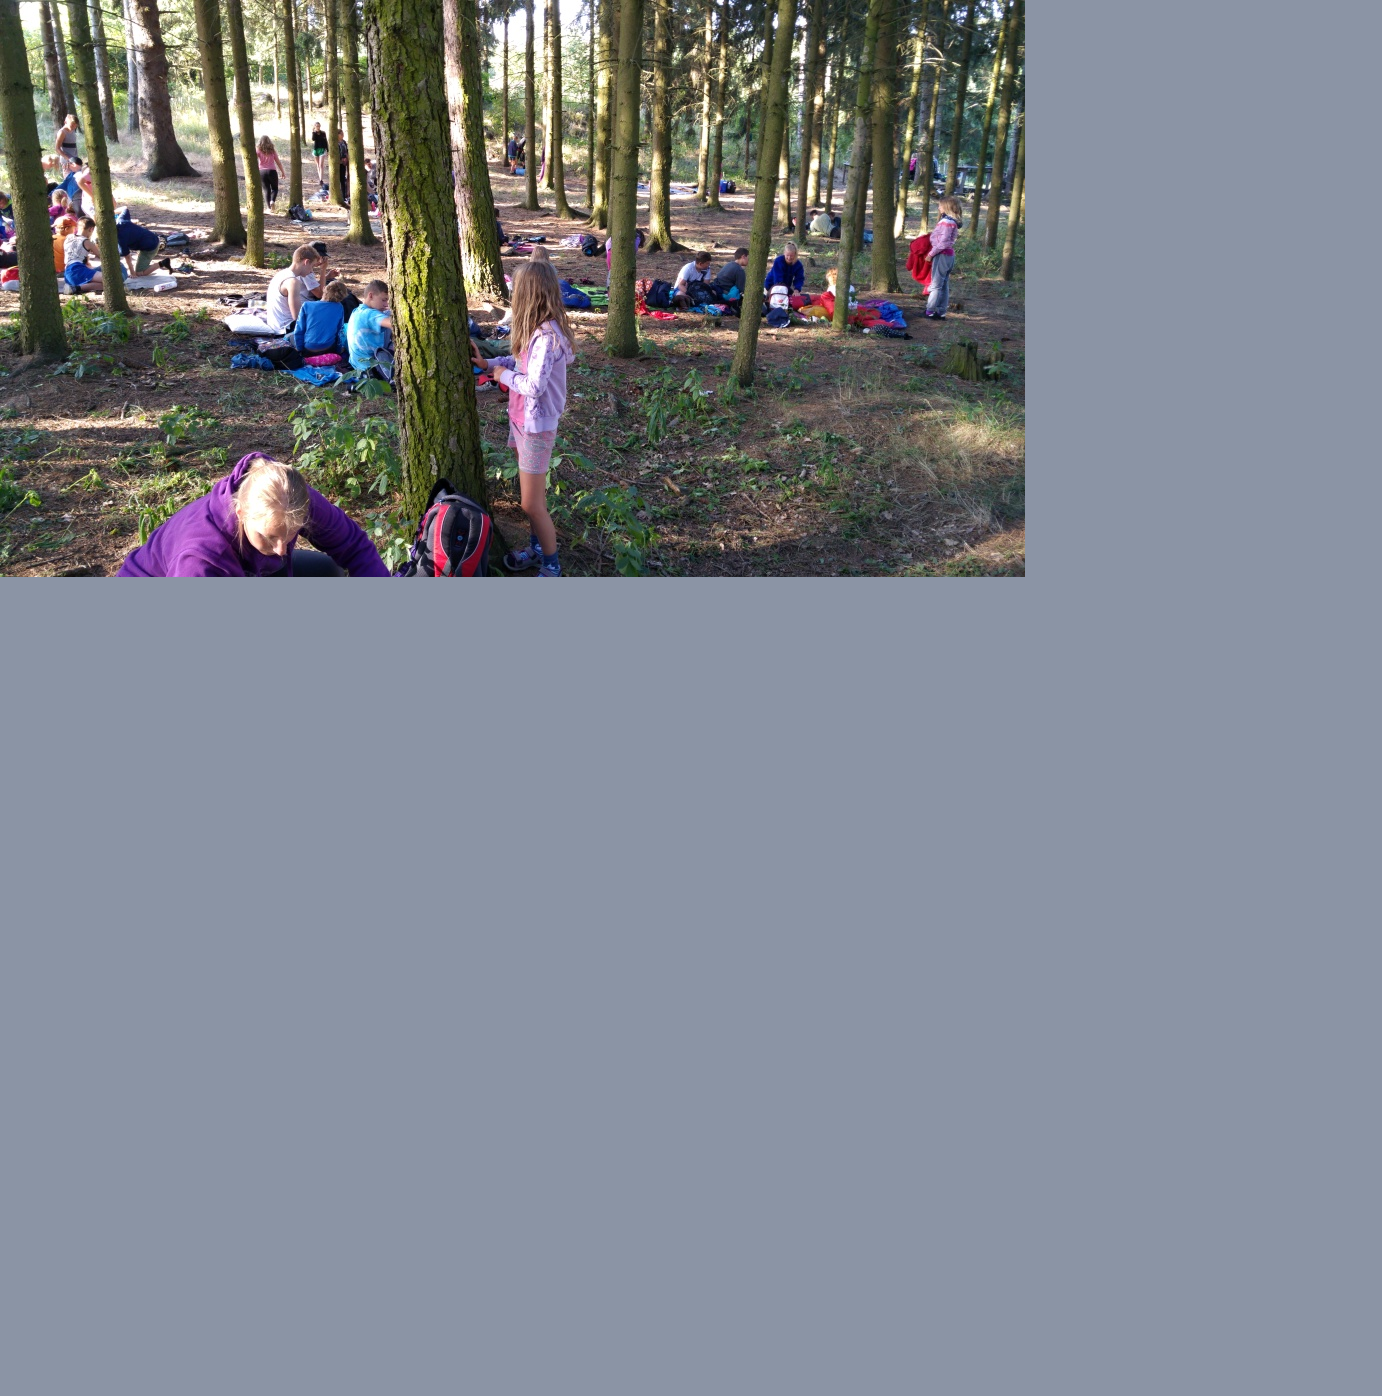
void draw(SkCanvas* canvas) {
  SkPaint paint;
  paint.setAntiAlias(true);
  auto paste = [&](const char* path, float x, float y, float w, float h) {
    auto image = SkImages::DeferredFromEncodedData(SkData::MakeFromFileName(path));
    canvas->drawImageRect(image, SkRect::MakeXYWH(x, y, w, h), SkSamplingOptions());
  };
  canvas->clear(0xff8b94a5);
  paste("img/1.png", 0, 0, 1025, 577);
}
